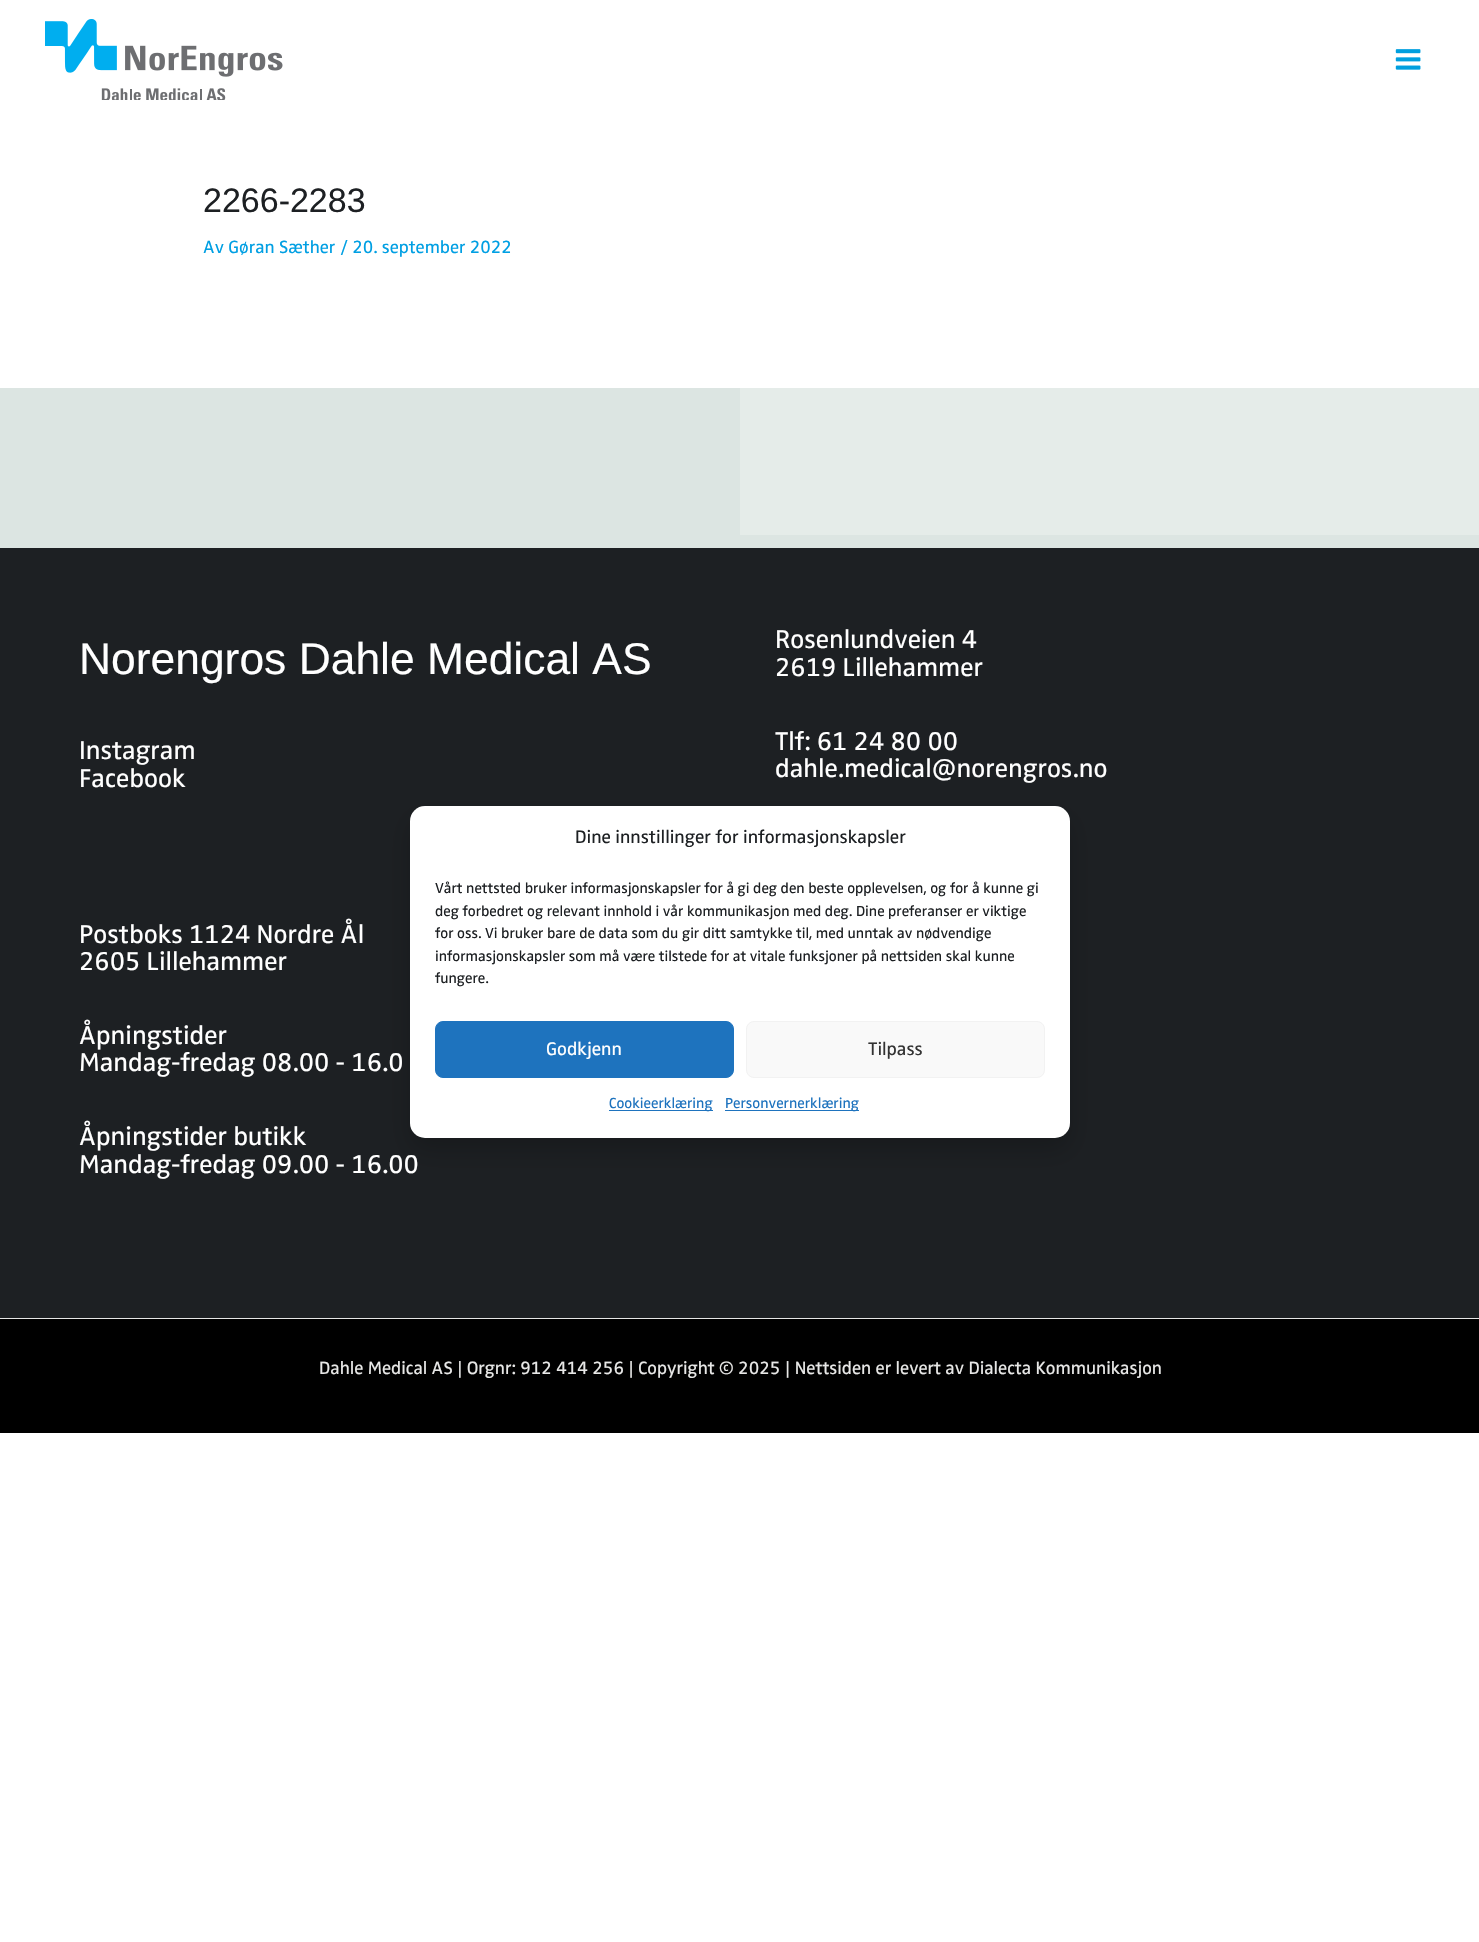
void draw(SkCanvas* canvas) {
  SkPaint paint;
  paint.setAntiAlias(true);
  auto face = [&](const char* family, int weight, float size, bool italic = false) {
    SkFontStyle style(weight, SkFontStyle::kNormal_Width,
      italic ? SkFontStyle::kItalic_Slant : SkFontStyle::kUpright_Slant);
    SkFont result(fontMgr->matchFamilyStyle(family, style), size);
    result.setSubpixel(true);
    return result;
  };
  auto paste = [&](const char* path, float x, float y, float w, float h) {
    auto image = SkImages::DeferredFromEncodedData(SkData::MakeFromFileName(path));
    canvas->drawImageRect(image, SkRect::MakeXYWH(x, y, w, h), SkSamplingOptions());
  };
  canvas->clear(0xffffffff);
  paste("img/1.png", 45, 19, 238, 81);
  paste("img/2.png", 1395, 49, 26, 21);
  {
    const struct { float x, y, w, h; SkColor color; } items[] = {
      {0, 388, 1479, 160, 0xffdce5e2},
      {740, 388, 739, 147, 0xffe5ece9},
      {0, 548, 1479, 770, 0xff1d2023},
      {0, 1319, 1479, 114, 0xff000000},
      {0, 1318, 1479, 1, 0xffe5e5e5},
    };
    for (auto [x, y, w, h, color] : items) {
      paint.setColor(color);
      canvas->drawRect(SkRect::MakeXYWH(x, y, w, h), paint);
    }
  }
  paint.setColor(0x30000000);
  paint.setMaskFilter(SkMaskFilter::MakeBlur(kNormal_SkBlurStyle, 12.5f));
  canvas->drawRoundRect(SkRect::MakeXYWH(410, 819, 660, 331), 15, 15, paint);
  paint.setMaskFilter(nullptr);
  paint.setColor(0xffffffff);
  canvas->drawRoundRect(SkRect::MakeXYWH(410, 806, 660, 332), 15, 15, paint);
  paint.setColor(0xff1e73be);
  canvas->drawRoundRect(SkRect::MakeXYWH(435.5f, 1021.5f, 298, 56), 7.5f, 7.5f, paint);
  paint.setStroke(true);
  paint.setStrokeWidth(1);
  canvas->drawRoundRect(SkRect::MakeXYWH(435.5f, 1021.5f, 298, 56), 7.5f, 7.5f, paint);
  paint.setStroke(false);
  paint.setColor(0xfff9f9f9);
  canvas->drawRoundRect(SkRect::MakeXYWH(746.5f, 1021.5f, 298, 56), 7.5f, 7.5f, paint);
  paint.setStroke(true);
  paint.setColor(0xfff2f2f2);
  canvas->drawRoundRect(SkRect::MakeXYWH(746.5f, 1021.5f, 298, 56), 7.5f, 7.5f, paint);
  paint.setStroke(false);
  paint.setColor(0xff1e73be);
  canvas->drawRect(SkRect::MakeXYWH(609, 1110, 104, 1), paint);
  canvas->drawRect(SkRect::MakeXYWH(725, 1110, 134, 1), paint);
  auto f0 = face("Liberation Sans", 400, 34);
  paint.setColor(0xff1d2023);
  canvas->drawString("2266-2283", 203, 212, f0, paint);
  auto f1 = face("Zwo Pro", 400, 18.25f);
  paint.setColor(0xff009fe3);
  canvas->drawString("Av Gøran Sæther / 20. september 2022", 203, 253, f1, paint);
  auto f2 = face("Liberation Sans", 400, 44.4f);
  paint.setColor(0xffffffff);
  canvas->drawString("Norengros Dahle Medical AS", 79, 674, f2, paint);
  auto f3 = face("Zwo Pro", 400, 26.6f);
  {
    const struct { const char* s; float x, y; } items[] = {
      {"Instagram", 79, 759},
      {"Facebook", 79, 787},
      {"Rosenlundveien 4", 775, 648},
      {"2619 Lillehammer", 775, 676},
      {"Tlf: 61 24 80 00", 775, 750},
      {"dahle.medical@norengros.no", 775, 777},
      {"Postboks 1124 Nordre Ål", 79, 943},
      {"2605 Lillehammer", 79, 970},
      {"Åpningstider", 79, 1044},
      {"Mandag-fredag 08.00 - 16.0", 79, 1071},
      {"Åpningstider butikk", 79, 1145},
      {"Mandag-fredag 09.00 - 16.00", 79, 1173},
    };
    for (auto [s, x, y] : items) {
      canvas->drawString(s, x, y, f3, paint);
    }
  }
  auto f4 = face("Zwo Pro", 400, 18.35f);
  paint.setColor(0xffe8e8e7);
  canvas->drawString("Dahle Medical AS | Orgnr: 912 414 256 | Copyright © 2025 | Nettsiden er levert av Dialecta Kommunikasjon", 319, 1374, f4, paint);
  auto f5 = face("Zwo Pro", 400, 18.75f);
  paint.setColor(0xff1d2023);
  canvas->drawString("Dine innstillinger for informasjonskapsler", 575, 843, f5, paint);
  auto f6 = face("Zwo Pro", 400, 15);
  {
    const struct { const char* s; float x, y; } items[] = {
      {"Vårt nettsted bruker informasjonskapsler for å gi deg den beste opplevelsen, og for å kunne gi", 435, 893},
      {"deg forbedret og relevant innhold i vår kommunikasjon med deg. Dine preferanser er viktige", 435, 916},
      {"for oss. Vi bruker bare de data som du gir ditt samtykke til, med unntak av nødvendige", 435, 938},
      {"informasjonskapsler som må være tilstede for at vitale funksjoner på nettsiden skal kunne", 435, 961},
      {"fungere.", 435, 983},
    };
    for (auto [s, x, y] : items) {
      canvas->drawString(s, x, y, f6, paint);
    }
  }
  paint.setColor(0xffffffff);
  canvas->drawString("Godkjenn", 546, 1055, f5, paint);
  paint.setColor(0xff333333);
  canvas->drawString("Tilpass", 868, 1055, f5, paint);
  paint.setColor(0xff1e73be);
  canvas->drawString("Cookieerklæring", 609, 1108, f6, paint);
  canvas->drawString("Personvernerklæring", 725, 1108, f6, paint);
}
